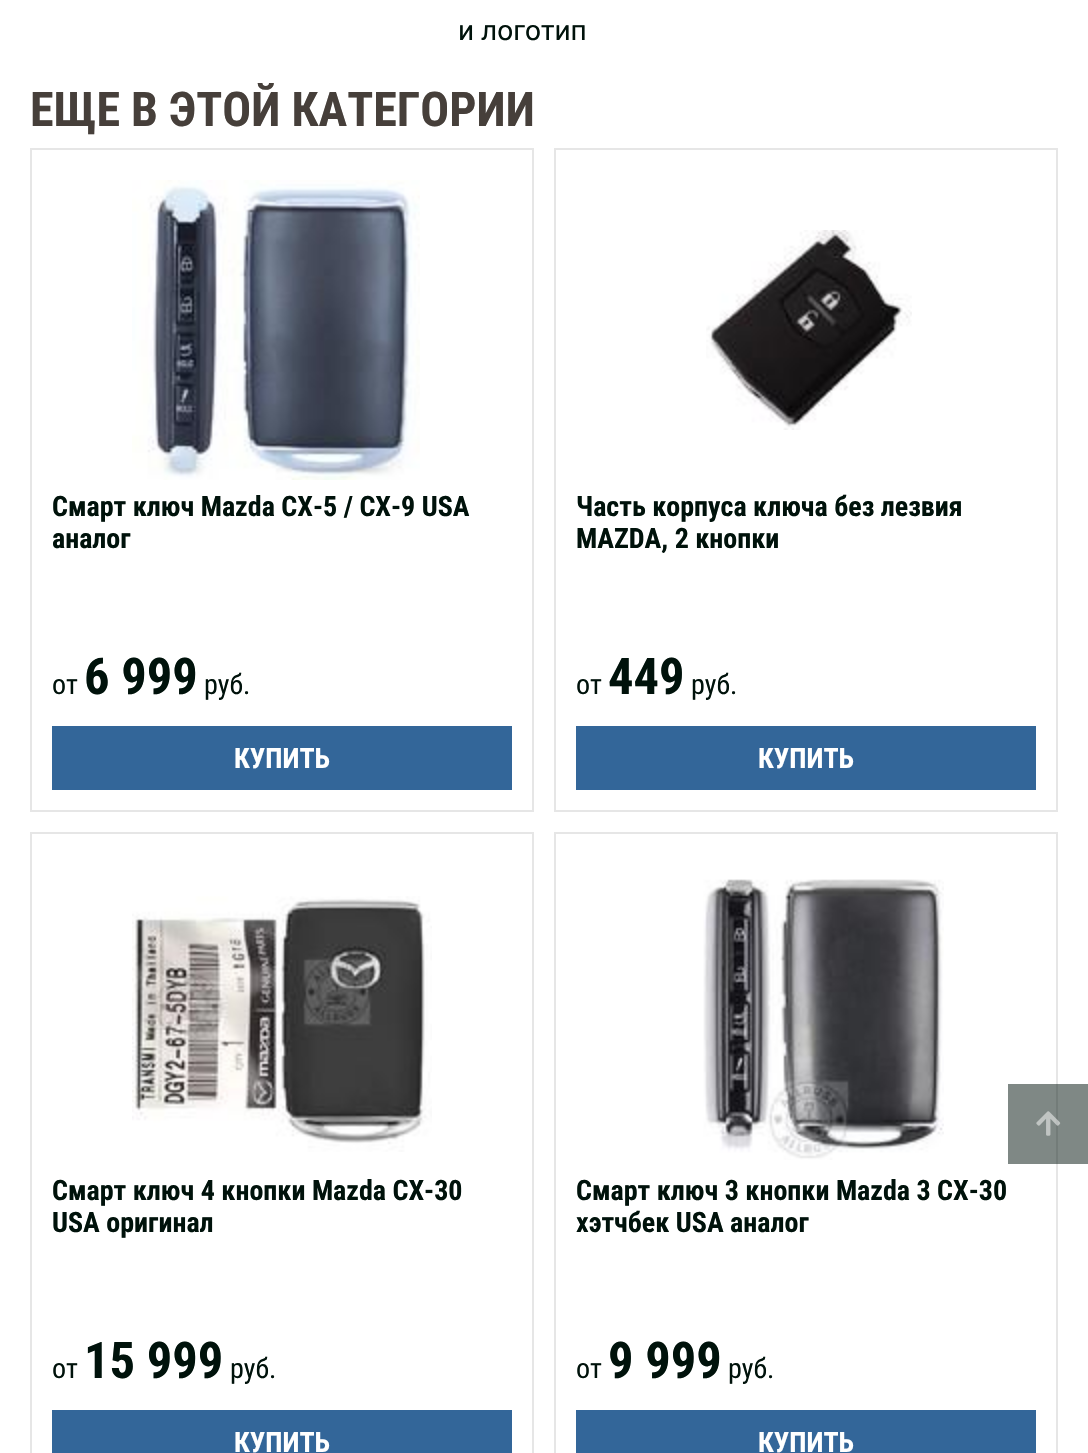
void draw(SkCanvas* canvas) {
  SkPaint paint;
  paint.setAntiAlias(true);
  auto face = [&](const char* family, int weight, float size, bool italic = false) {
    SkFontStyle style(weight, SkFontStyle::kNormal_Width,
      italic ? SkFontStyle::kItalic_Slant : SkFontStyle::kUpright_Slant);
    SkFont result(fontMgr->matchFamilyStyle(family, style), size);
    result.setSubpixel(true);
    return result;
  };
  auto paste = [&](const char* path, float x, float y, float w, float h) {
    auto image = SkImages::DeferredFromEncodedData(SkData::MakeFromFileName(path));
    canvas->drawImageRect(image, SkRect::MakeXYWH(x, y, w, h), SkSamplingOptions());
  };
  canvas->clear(0xffffffff);
  paint.setStroke(true);
  paint.setStrokeWidth(2);
  paint.setColor(0xffe6e6e6);
  canvas->drawRect(SkRect::MakeXYWH(31, 149, 502, 662), paint);
  paste("img/1.png", 132, 180, 288, 300);
  paint.setStroke(false);
  paint.setColor(0xff336699);
  canvas->drawRect(SkRect::MakeXYWH(52, 726, 460, 64), paint);
  paint.setStroke(true);
  paint.setColor(0xffe6e6e6);
  canvas->drawRect(SkRect::MakeXYWH(555, 149, 502, 662), paint);
  paste("img/2.png", 706, 230, 206, 200);
  paint.setStroke(false);
  paint.setColor(0xff336699);
  canvas->drawRect(SkRect::MakeXYWH(576, 726, 460, 64), paint);
  paint.setStroke(true);
  paint.setColor(0xffe6e6e6);
  canvas->drawRect(SkRect::MakeXYWH(31, 833, 502, 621), paint);
  paste("img/3.png", 132, 896, 300, 256);
  paint.setStroke(false);
  paint.setColor(0xff336699);
  canvas->drawRect(SkRect::MakeXYWH(52, 1410, 460, 43), paint);
  paint.setStroke(true);
  paint.setColor(0xffe6e6e6);
  canvas->drawRect(SkRect::MakeXYWH(555, 833, 502, 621), paint);
  paste("img/4.png", 703, 879, 241, 281);
  paint.setStroke(false);
  paint.setColor(0xff336699);
  canvas->drawRect(SkRect::MakeXYWH(576, 1410, 460, 43), paint);
  paint.setColor(0x8000120b);
  canvas->drawRect(SkRect::MakeXYWH(1008, 1084, 80, 80), paint);
  paste("img/5.png", 1036, 1111, 25, 25);
  auto f0 = face("Roboto", 400, 28);
  paint.setColor(0xff00120b);
  canvas->drawString("и логотип", 458, 40, f0, paint);
  auto f1 = face("Roboto Condensed", 700, 48);
  paint.setColor(0xff463f3a);
  canvas->drawString("ЕЩЕ В ЭТОЙ КАТЕГОРИИ", 30, 126, f1, paint);
  auto f2 = face("Roboto Condensed", 700, 28);
  paint.setColor(0xff00120b);
  canvas->drawString("Смарт ключ Mazda CX-5 / CX-9 USA", 52, 516, f2, paint);
  canvas->drawString("аналог", 52, 548, f2, paint);
  auto f3 = face("Roboto Condensed", 400, 28);
  canvas->drawString("от", 52, 694, f3, paint);
  auto f4 = face("Roboto Condensed", 700, 50.5f);
  canvas->drawString("6 999", 84, 694, f4, paint);
  canvas->drawString("руб.", 204, 694, f3, paint);
  paint.setColor(0xffffffff);
  canvas->drawString("КУПИТЬ", 234, 768, f2, paint);
  paint.setColor(0xff00120b);
  canvas->drawString("Часть корпуса ключа без лезвия", 576, 516, f2, paint);
  canvas->drawString("MAZDA, 2 кнопки", 576, 548, f2, paint);
  canvas->drawString("от", 576, 694, f3, paint);
  canvas->drawString("449", 608, 694, f4, paint);
  canvas->drawString("руб.", 691, 694, f3, paint);
  paint.setColor(0xffffffff);
  canvas->drawString("КУПИТЬ", 758, 768, f2, paint);
  paint.setColor(0xff00120b);
  canvas->drawString("Смарт ключ 4 кнопки Mazda CX-30", 52, 1200, f2, paint);
  canvas->drawString("USA оригинал", 52, 1232, f2, paint);
  canvas->drawString("от", 52, 1378, f3, paint);
  canvas->drawString("15 999", 84, 1378, f4, paint);
  canvas->drawString("руб.", 230, 1378, f3, paint);
  paint.setColor(0xffffffff);
  canvas->drawString("КУПИТЬ", 234, 1452, f2, paint);
  paint.setColor(0xff00120b);
  canvas->drawString("Смарт ключ 3 кнопки Mazda 3 CX-30", 576, 1200, f2, paint);
  canvas->drawString("хэтчбек USA аналог", 576, 1232, f2, paint);
  canvas->drawString("от", 576, 1378, f3, paint);
  canvas->drawString("9 999", 608, 1378, f4, paint);
  canvas->drawString("руб.", 728, 1378, f3, paint);
  paint.setColor(0xffffffff);
  canvas->drawString("КУПИТЬ", 758, 1452, f2, paint);
}
